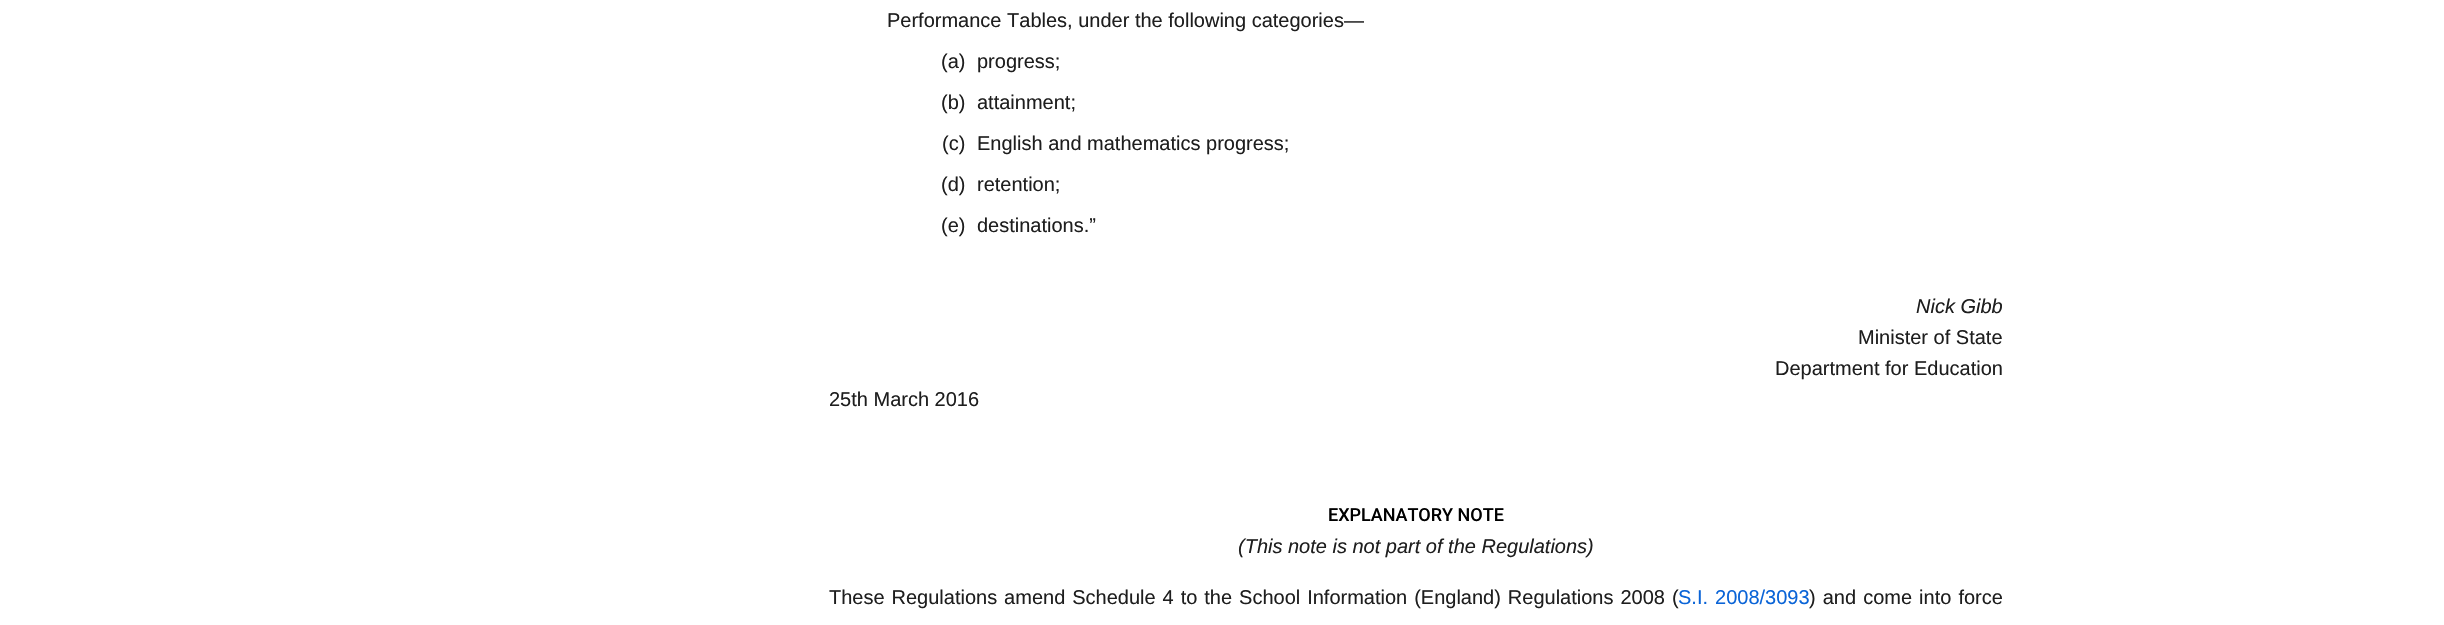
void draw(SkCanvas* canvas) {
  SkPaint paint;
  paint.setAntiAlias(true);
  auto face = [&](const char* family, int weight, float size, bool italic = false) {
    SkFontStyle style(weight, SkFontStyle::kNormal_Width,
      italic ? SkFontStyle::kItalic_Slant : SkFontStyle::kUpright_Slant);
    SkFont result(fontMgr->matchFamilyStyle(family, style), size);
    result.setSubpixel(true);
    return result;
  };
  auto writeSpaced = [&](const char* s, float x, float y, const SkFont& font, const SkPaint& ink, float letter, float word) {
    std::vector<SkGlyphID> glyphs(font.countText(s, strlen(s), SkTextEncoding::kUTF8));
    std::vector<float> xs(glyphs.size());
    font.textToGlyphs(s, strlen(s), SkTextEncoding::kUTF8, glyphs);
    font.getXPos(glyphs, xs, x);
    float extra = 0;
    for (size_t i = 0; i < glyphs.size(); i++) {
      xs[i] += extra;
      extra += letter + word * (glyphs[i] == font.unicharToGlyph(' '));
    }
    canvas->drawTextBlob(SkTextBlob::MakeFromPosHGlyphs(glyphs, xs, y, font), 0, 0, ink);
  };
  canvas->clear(0xffffffff);
  auto f0 = face("Liberation Sans", 400, 20);
  paint.setColor(0xff1e1e1e);
  {
    const struct { const char* s; float x, y; } items[] = {
      {"Performance Tables, under the following categories—", 887, 27},
      {"(a)", 941, 68},
      {"progress;", 977, 68},
      {"(b)", 941, 109},
      {"attainment;", 977, 109},
      {"(c)", 942, 150},
      {"English and mathematics progress;", 977, 150},
      {"(d)", 941, 191},
      {"retention;", 977, 191},
      {"(e)", 941, 232},
      {"destinations.”", 977, 232},
    };
    for (auto [s, x, y] : items) {
      canvas->drawString(s, x, y, f0, paint);
    }
  }
  auto f1 = face("Liberation Sans", 400, 20, true);
  canvas->drawString("Nick Gibb", 1916, 313, f1, paint);
  {
    const struct { const char* s; float x, y; } items[] = {
      {"Minister of State", 1858, 344},
      {"Department for Education", 1775, 375},
      {"25th March 2016", 829, 406},
    };
    for (auto [s, x, y] : items) {
      canvas->drawString(s, x, y, f0, paint);
    }
  }
  auto f2 = face("Roboto", 500, 18);
  paint.setColor(0xff000000);
  canvas->drawString("EXPLANATORY NOTE", 1328, 521, f2, paint);
  paint.setColor(0xff1e1e1e);
  canvas->drawString("(This note is not part of the Regulations)", 1238, 553, f1, paint);
  writeSpaced("These Regulations amend Schedule 4 to the School Information (England) Regulations 2008 (", 829, 604, f0, paint, 0, 1.4f);
  paint.setColor(0xff0a64d7);
  writeSpaced("S.I. 2008/3093", 1678, 604, f0, paint, 0, 1.5f);
  paint.setColor(0xff1e1e1e);
  writeSpaced(") and come into force", 1809, 604, f0, paint, 0, 1.5f);
}
